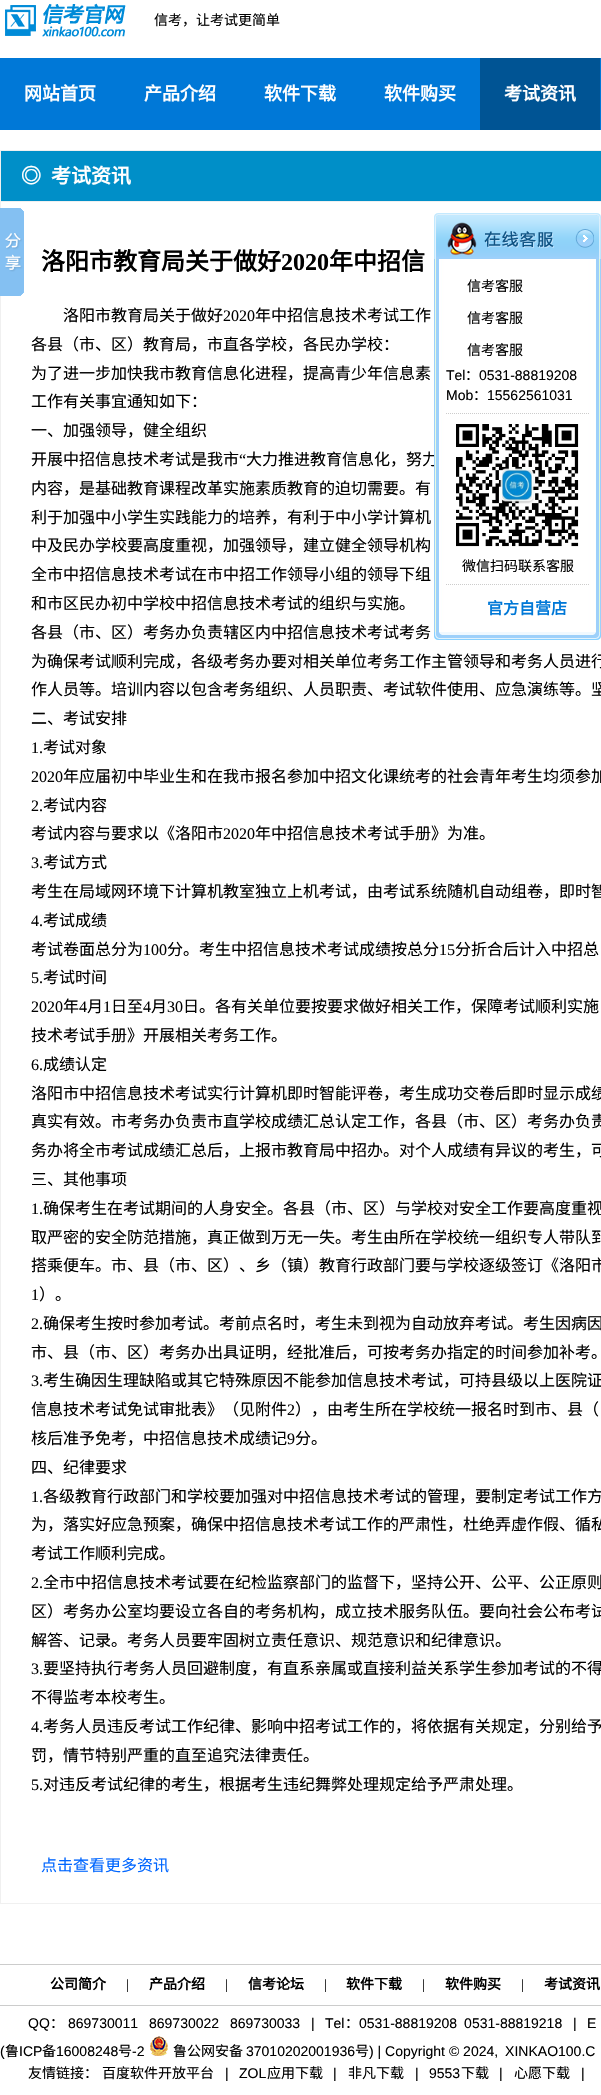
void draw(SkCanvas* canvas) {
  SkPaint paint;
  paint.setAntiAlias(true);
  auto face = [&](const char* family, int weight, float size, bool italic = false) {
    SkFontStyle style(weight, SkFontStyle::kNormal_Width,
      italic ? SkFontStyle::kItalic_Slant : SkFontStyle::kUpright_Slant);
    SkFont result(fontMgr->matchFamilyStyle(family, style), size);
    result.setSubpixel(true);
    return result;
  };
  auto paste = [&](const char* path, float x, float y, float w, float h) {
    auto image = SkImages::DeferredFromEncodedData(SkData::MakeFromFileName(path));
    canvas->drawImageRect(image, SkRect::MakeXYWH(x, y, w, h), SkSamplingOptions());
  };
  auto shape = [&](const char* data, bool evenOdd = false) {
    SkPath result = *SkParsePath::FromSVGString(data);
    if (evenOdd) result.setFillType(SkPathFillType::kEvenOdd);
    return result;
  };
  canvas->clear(0xffffffff);
  paste("img/1.png", 5, 3, 121, 34);
  paint.setColor(0xff0078d7);
  canvas->drawRect(SkRect::MakeXYWH(0, 58, 601, 72), paint);
  paint.setColor(0xff005494);
  canvas->drawRect(SkRect::MakeXYWH(480, 58, 120, 72), paint);
  paint.setStroke(true);
  paint.setStrokeWidth(1);
  paint.setColor(0xfff0f0f0);
  canvas->drawRect(SkRect::MakeXYWH(0.5f, 150.5f, 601, 1753), paint);
  paste("img/2.png", 0, 208, 24, 88);
  paint.setStroke(false);
  paint.setColor(0xff008fc8);
  canvas->drawRect(SkRect::MakeXYWH(1, 151, 600, 50), paint);
  paint.setColor(0xfff0f0f0);
  canvas->drawRect(SkRect::MakeXYWH(1, 201, 600, 1), paint);
  paste("img/3.png", 434, 213, 167, 46);
  paste("img/4.png", 575, 229, 19, 19);
  paste("img/7.png", 434, 632, 167, 8);
  paint.setColor(0xffcccccc);
  canvas->drawRect(SkRect::MakeXYWH(0, 1964, 601, 1), paint);
  canvas->drawRect(SkRect::MakeXYWH(0, 2005, 601, 1), paint);
  paste("img/8.png", 150, 2036, 18, 20);
  auto f0 = face("Noto Sans CJK SC", 400, 14);
  paint.setColor(0xff000000);
  canvas->drawString("信考，让考试更简单", 154, 25, f0, paint);
  auto f1 = face("Noto Sans CJK SC", 700, 18);
  paint.setColor(0xffffffff);
  {
    const struct { const char* s; float x, y; } items[] = {
      {"网站首页", 24, 100},
      {"产品介绍", 144, 100},
      {"软件下载", 264, 100},
      {"软件购买", 384, 100},
      {"考试资讯", 504, 100},
    };
    for (auto [s, x, y] : items) {
      canvas->drawString(s, x, y, f1, paint);
    }
  }
  auto f2 = face("Noto Sans CJK SC", 700, 20);
  canvas->drawString("◎", 21, 183, f2, paint);
  canvas->drawString("考试资讯", 51, 183, f2, paint);
  auto f3 = face("Noto Sans CJK SC", 700, 24);
  paint.setColor(0xff000000);
  canvas->drawString("洛阳市教育局关于做好", 41, 270, f3, paint);
  auto f4 = face("Liberation Serif", 700, 24);
  canvas->drawString("2020", 281, 270, f4, paint);
  canvas->drawString("年中招信", 329, 270, f3, paint);
  auto f5 = face("Noto Sans CJK SC", 400, 16);
  canvas->drawString("洛阳市教育局关于做好", 63, 321, f5, paint);
  auto f6 = face("Liberation Serif", 400, 16);
  canvas->drawString("2020", 223, 321, f6, paint);
  {
    const struct { const char* s; float x, y; } items[] = {
      {"年中招信息技术考试工作", 255, 321},
      {"各县（市、区）教育局，市直各学校，各民办学校：", 31, 350},
      {"为了进一步加快我市教育信息化进程，提高青少年信息素", 31, 379},
      {"工作有关事宜通知如下：", 31, 407},
      {"一、加强领导，健全组织", 31, 436},
      {"开展中招信息技术考试是我市", 31, 465},
    };
    for (auto [s, x, y] : items) {
      canvas->drawString(s, x, y, f5, paint);
    }
  }
  canvas->drawString("“", 239, 465, f6, paint);
  {
    const struct { const char* s; float x, y; } items[] = {
      {"大力推进教育信息化，努力", 246, 465},
      {"内容，是基础教育课程改革实施素质教育的迫切需要。有", 31, 494},
      {"利于加强中小学生实践能力的培养，有利于中小学计算机", 31, 523},
      {"中及民办学校要高度重视，加强领导，建立健全领导机构", 31, 551},
      {"全市中招信息技术考试在市中招工作领导小组的领导下组", 31, 580},
      {"和市区民办初中学校中招信息技术考试的组织与实施。", 31, 609},
      {"各县（市、区）考务办负责辖区内中招信息技术考试考务", 31, 638},
      {"为确保考试顺利完成，各级考务办要对相关单位考务工作主管领导和考务人员进行", 31, 667},
      {"作人员等。培训内容以包含考务组织、人员职责、考试软件使用、应急演练等。坚", 31, 695},
      {"二、考试安排", 31, 724},
    };
    for (auto [s, x, y] : items) {
      canvas->drawString(s, x, y, f5, paint);
    }
  }
  canvas->drawString("1.", 31, 753, f6, paint);
  canvas->drawString("考试对象", 43, 753, f5, paint);
  canvas->drawString("2020", 31, 782, f6, paint);
  canvas->drawString("年应届初中毕业生和在我市报名参加中招文化课统考的社会青年考生均须参加", 63, 782, f5, paint);
  canvas->drawString("2.", 31, 811, f6, paint);
  canvas->drawString("考试内容", 43, 811, f5, paint);
  canvas->drawString("考试内容与要求以《洛阳市", 31, 839, f5, paint);
  canvas->drawString("2020", 223, 839, f6, paint);
  canvas->drawString("年中招信息技术考试手册》为准。", 255, 839, f5, paint);
  canvas->drawString("3.", 31, 868, f6, paint);
  canvas->drawString("考试方式", 43, 868, f5, paint);
  canvas->drawString("考生在局域网环境下计算机教室独立上机考试，由考试系统随机自动组卷，即时智", 31, 897, f5, paint);
  canvas->drawString("4.", 31, 926, f6, paint);
  canvas->drawString("考试成绩", 43, 926, f5, paint);
  canvas->drawString("考试卷面总分为", 31, 955, f5, paint);
  canvas->drawString("100", 143, 955, f6, paint);
  canvas->drawString("分。考生中招信息技术考试成绩按总分", 167, 955, f5, paint);
  canvas->drawString("15", 439, 955, f6, paint);
  canvas->drawString("分折合后计入中招总", 455, 955, f5, paint);
  canvas->drawString("5.", 31, 983, f6, paint);
  canvas->drawString("考试时间", 43, 983, f5, paint);
  canvas->drawString("2020", 31, 1012, f6, paint);
  canvas->drawString("年", 63, 1012, f5, paint);
  canvas->drawString("4", 79, 1012, f6, paint);
  canvas->drawString("月", 87, 1012, f5, paint);
  canvas->drawString("1", 103, 1012, f6, paint);
  canvas->drawString("日至", 111, 1012, f5, paint);
  canvas->drawString("4", 143, 1012, f6, paint);
  canvas->drawString("月", 151, 1012, f5, paint);
  canvas->drawString("30", 167, 1012, f6, paint);
  canvas->drawString("日。各有关单位要按要求做好相关工作，保障考试顺利实施", 183, 1012, f5, paint);
  canvas->drawString("技术考试手册》开展相关考务工作。", 31, 1041, f5, paint);
  canvas->drawString("6.", 31, 1070, f6, paint);
  {
    const struct { const char* s; float x, y; } items[] = {
      {"成绩认定", 43, 1070},
      {"洛阳市中招信息技术考试实行计算机即时智能评卷，考生成功交卷后即时显示成绩", 31, 1099},
      {"真实有效。市考务办负责市直学校成绩汇总认定工作，各县（市、区）考务办负责", 31, 1127},
      {"务办将全市考试成绩汇总后，上报市教育局中招办。对个人成绩有异议的考生，可", 31, 1156},
      {"三、其他事项", 31, 1185},
    };
    for (auto [s, x, y] : items) {
      canvas->drawString(s, x, y, f5, paint);
    }
  }
  canvas->drawString("1.", 31, 1214, f6, paint);
  {
    const struct { const char* s; float x, y; } items[] = {
      {"确保考生在考试期间的人身安全。各县（市、区）与学校对安全工作要高度重视", 43, 1214},
      {"取严密的安全防范措施，真正做到万无一失。考生由所在学校统一组织专人带队到", 31, 1243},
      {"搭乘便车。市、县（市、区）、乡（镇）教育行政部门要与学校逐级签订《洛阳市", 31, 1271},
    };
    for (auto [s, x, y] : items) {
      canvas->drawString(s, x, y, f5, paint);
    }
  }
  canvas->drawString("1", 31, 1300, f6, paint);
  canvas->drawString("）。", 39, 1300, f5, paint);
  canvas->drawString("2.", 31, 1329, f6, paint);
  canvas->drawString("确保考生按时参加考试。考前点名时，考生未到视为自动放弃考试。考生因病因", 43, 1329, f5, paint);
  canvas->drawString("市、县（市、区）考务办出具证明，经批准后，可按考务办指定的时间参加补考。", 31, 1358, f5, paint);
  canvas->drawString("3.", 31, 1386, f6, paint);
  canvas->drawString("考生确因生理缺陷或其它特殊原因不能参加信息技术考试，可持县级以上医院证", 43, 1386, f5, paint);
  canvas->drawString("信息技术考试免试审批表》（见附件", 31, 1415, f5, paint);
  canvas->drawString("2", 287, 1415, f6, paint);
  canvas->drawString("），由考生所在学校统一报名时到市、县（", 295, 1415, f5, paint);
  canvas->drawString("核后准予免考，中招信息技术成绩记", 31, 1444, f5, paint);
  canvas->drawString("9", 287, 1444, f6, paint);
  canvas->drawString("分。", 295, 1444, f5, paint);
  canvas->drawString("四、纪律要求", 31, 1473, f5, paint);
  canvas->drawString("1.", 31, 1502, f6, paint);
  {
    const struct { const char* s; float x, y; } items[] = {
      {"各级教育行政部门和学校要加强对中招信息技术考试的管理，要制定考试工作方", 43, 1502},
      {"为，落实好应急预案，确保中招信息技术考试工作的严肃性，杜绝弄虚作假、循私", 31, 1530},
      {"考试工作顺利完成。", 31, 1559},
    };
    for (auto [s, x, y] : items) {
      canvas->drawString(s, x, y, f5, paint);
    }
  }
  canvas->drawString("2.", 31, 1588, f6, paint);
  {
    const struct { const char* s; float x, y; } items[] = {
      {"全市中招信息技术考试要在纪检监察部门的监督下，坚持公开、公平、公正原则", 43, 1588},
      {"区）考务办公室均要设立各自的考务机构，成立技术服务队伍。要向社会公布考试", 31, 1617},
      {"解答、记录。考务人员要牢固树立责任意识、规范意识和纪律意识。", 31, 1646},
    };
    for (auto [s, x, y] : items) {
      canvas->drawString(s, x, y, f5, paint);
    }
  }
  canvas->drawString("3.", 31, 1674, f6, paint);
  canvas->drawString("要坚持执行考务人员回避制度，有直系亲属或直接利益关系学生参加考试的不得", 43, 1674, f5, paint);
  canvas->drawString("不得监考本校考生。", 31, 1703, f5, paint);
  canvas->drawString("4.", 31, 1732, f6, paint);
  canvas->drawString("考务人员违反考试工作纪律、影响中招考试工作的，将依据有关规定，分别给予", 43, 1732, f5, paint);
  canvas->drawString("罚，情节特别严重的直至追究法律责任。", 31, 1761, f5, paint);
  canvas->drawString("5.", 31, 1790, f6, paint);
  canvas->drawString("对违反考试纪律的考生，根据考生违纪舞弊处理规定给予严肃处理。", 43, 1790, f5, paint);
  paint.setColor(0xff0066ff);
  canvas->drawString("点击查看更多资讯", 41, 1871, f5, paint);
  paste("img/5.png", 434, 259, 167, 373);
  paint.setColor(0xff000000);
  {
    const struct { const char* s; float x, y; } items[] = {
      {"信考客服", 467, 291},
      {"信考客服", 467, 323},
      {"信考客服", 467, 355},
    };
    for (auto [s, x, y] : items) {
      canvas->drawString(s, x, y, f0, paint);
    }
  }
  auto f7 = face("Liberation Sans", 400, 14);
  canvas->drawString("Tel", 446, 380, f7, paint);
  canvas->drawString("：", 465, 380, f0, paint);
  canvas->drawString("0531-88819208", 479, 380, f7, paint);
  canvas->drawString("Mob", 446, 400, f7, paint);
  canvas->drawString("：", 473, 400, f0, paint);
  canvas->drawString("15562561031", 487, 400, f7, paint);
  paint.setStroke(true);
  paint.setColor(0xffcccccc);
  paint.setPathEffect(SkDashPathEffect::Make({{1, 1}}, 0));
  canvas->drawPath(shape("M446 413.5H589"), paint);
  paint.setPathEffect(nullptr);
  paste("img/6.png", 456, 424, 123, 123);
  paint.setStroke(false);
  paint.setColor(0xff000000);
  canvas->drawString("微信扫码联系客服", 462, 571, f0, paint);
  paint.setStroke(true);
  paint.setColor(0xffcccccc);
  paint.setPathEffect(SkDashPathEffect::Make({{1, 1}}, 0));
  canvas->drawPath(shape("M446 584.5H589"), paint);
  paint.setPathEffect(nullptr);
  auto f8 = face("Noto Sans CJK SC", 700, 16);
  paint.setStroke(false);
  paint.setColor(0xff0078d7);
  canvas->drawString("官方自营店", 487, 614, f8, paint);
  auto f9 = face("Noto Sans CJK SC", 700, 14);
  paint.setColor(0xff000000);
  canvas->drawString("公司简介", 50, 1989, f9, paint);
  auto f10 = face("Liberation Serif", 400, 14);
  canvas->drawString("|", 126, 1989, f10, paint);
  canvas->drawString("产品介绍", 149, 1989, f9, paint);
  canvas->drawString("|", 225, 1989, f10, paint);
  canvas->drawString("信考论坛", 248, 1989, f9, paint);
  canvas->drawString("|", 324, 1989, f10, paint);
  canvas->drawString("软件下载", 346, 1989, f9, paint);
  canvas->drawString("|", 422, 1989, f10, paint);
  canvas->drawString("软件购买", 445, 1989, f9, paint);
  canvas->drawString("|", 521, 1989, f10, paint);
  canvas->drawString("考试资讯", 544, 1989, f9, paint);
  canvas->drawString("QQ", 28, 2028, f7, paint);
  canvas->drawString("：", 50, 2028, f0, paint);
  {
    const struct { const char* s; float x, y; } items[] = {
      {"869730011", 68, 2028},
      {"869730022", 149, 2028},
      {"869730033", 230, 2028},
      {"|", 311, 2028},
      {"Tel", 325, 2028},
    };
    for (auto [s, x, y] : items) {
      canvas->drawString(s, x, y, f7, paint);
    }
  }
  canvas->drawString("：", 345, 2028, f0, paint);
  {
    const struct { const char* s; float x, y; } items[] = {
      {"0531-88819208 0531-88819218", 359, 2028},
      {"|", 573, 2028},
      {"E", 587, 2028},
      {"(", 0, 2056},
    };
    for (auto [s, x, y] : items) {
      canvas->drawString(s, x, y, f7, paint);
    }
  }
  canvas->drawString("鲁", 5, 2056, f0, paint);
  canvas->drawString("ICP", 19, 2056, f7, paint);
  canvas->drawString("备", 42, 2056, f0, paint);
  canvas->drawString("16008248", 56, 2056, f7, paint);
  canvas->drawString("号", 118, 2056, f0, paint);
  canvas->drawString("-2", 132, 2056, f7, paint);
  canvas->drawString("鲁公网安备", 173, 2056, f0, paint);
  canvas->drawString("37010202001936", 246, 2056, f7, paint);
  canvas->drawString("号", 355, 2056, f0, paint);
  canvas->drawString(") | Copyright © 2024, XINKAO100.C", 369, 2056, f7, paint);
  canvas->drawString("友情链接：", 28, 2078, f0, paint);
  canvas->drawString("百度软件开放平台", 102, 2078, f0, paint);
  canvas->drawString("|", 225, 2078, f7, paint);
  canvas->drawString("ZOL", 239, 2078, f7, paint);
  canvas->drawString("应用下载", 267, 2078, f0, paint);
  canvas->drawString("|", 333, 2078, f7, paint);
  canvas->drawString("非凡下载", 348, 2078, f0, paint);
  canvas->drawString("|", 415, 2078, f7, paint);
  canvas->drawString("9553", 429, 2078, f7, paint);
  canvas->drawString("下载", 461, 2078, f0, paint);
  canvas->drawString("|", 499, 2078, f7, paint);
  canvas->drawString("心愿下载", 514, 2078, f0, paint);
  canvas->drawString("|", 581, 2078, f7, paint);
}
